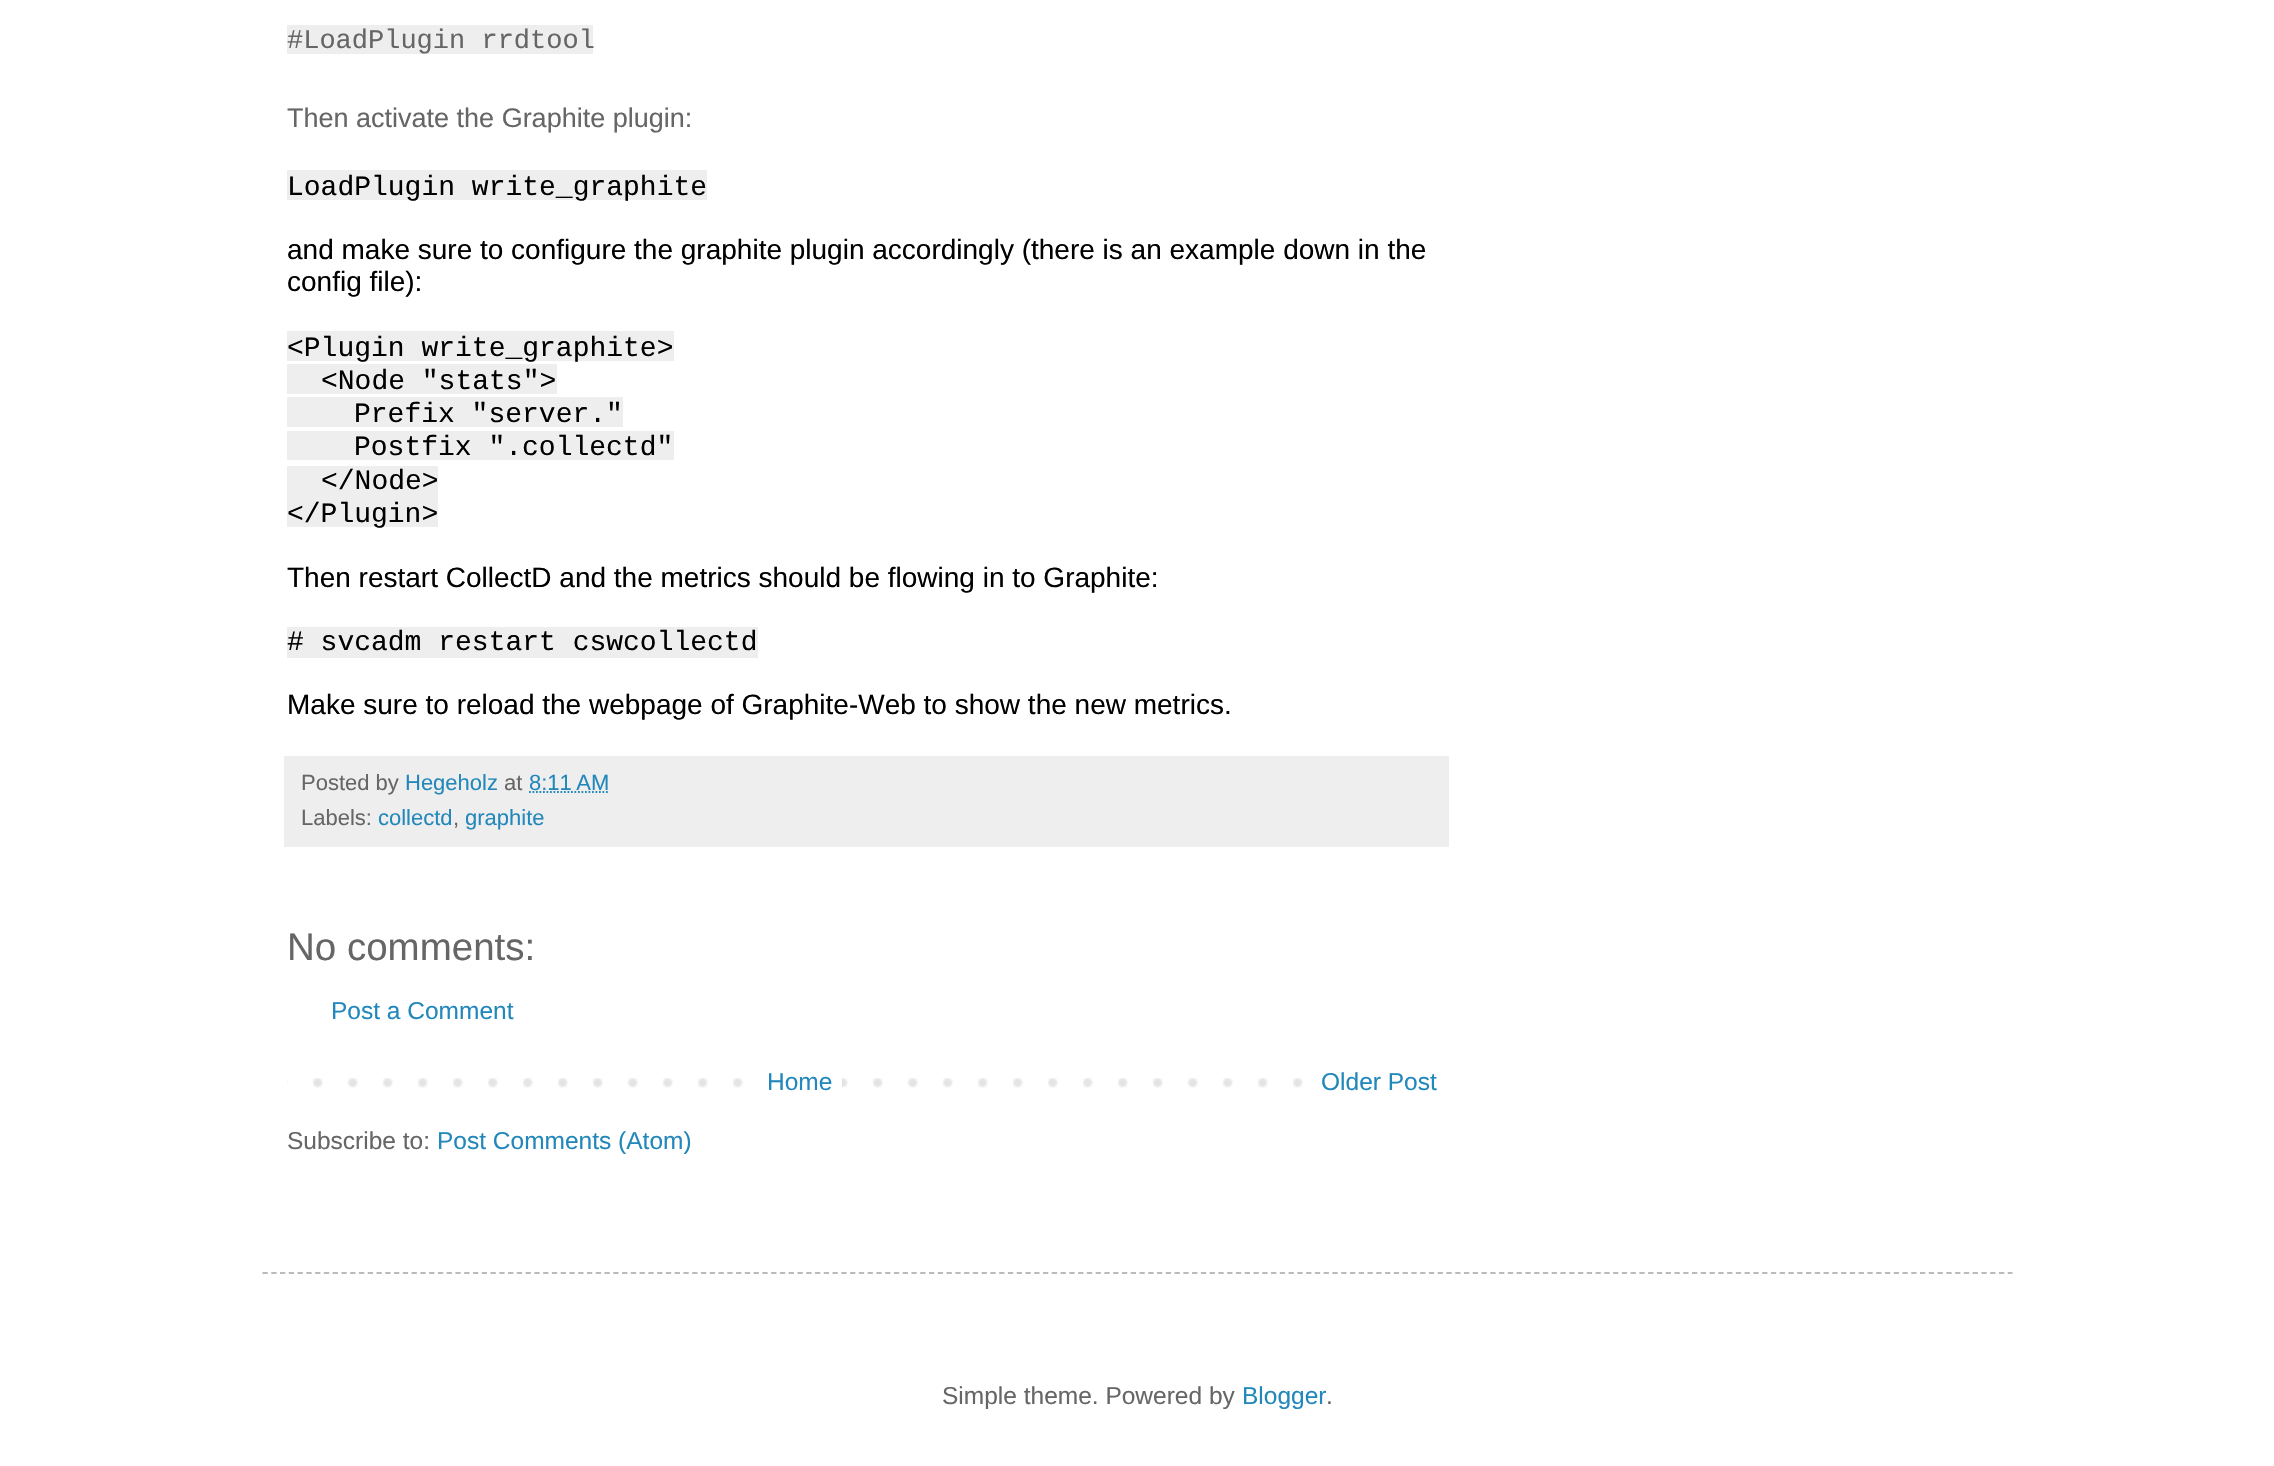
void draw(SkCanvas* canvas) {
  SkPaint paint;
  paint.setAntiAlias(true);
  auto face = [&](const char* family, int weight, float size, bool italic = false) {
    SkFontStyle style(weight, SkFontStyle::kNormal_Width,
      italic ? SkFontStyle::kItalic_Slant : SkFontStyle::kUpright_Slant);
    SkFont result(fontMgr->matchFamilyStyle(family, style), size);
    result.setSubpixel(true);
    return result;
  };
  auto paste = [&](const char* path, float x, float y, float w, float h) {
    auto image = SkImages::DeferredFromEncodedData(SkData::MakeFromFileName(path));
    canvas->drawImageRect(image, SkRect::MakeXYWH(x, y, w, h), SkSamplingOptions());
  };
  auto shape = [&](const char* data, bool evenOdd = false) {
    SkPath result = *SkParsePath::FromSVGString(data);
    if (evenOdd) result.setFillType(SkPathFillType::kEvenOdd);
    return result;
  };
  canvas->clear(0xffffffff);
  {
    const struct { float x, y, w, h; SkColor color; } items[] = {
      {287, 25, 306, 29, 0xffeeeeee},
      {287, 170, 420, 30, 0xffeeeeee},
      {287, 331, 387, 30, 0xffeeeeee},
      {287, 364, 270, 30, 0xffeeeeee},
      {287, 397, 336, 30, 0xffeeeeee},
      {287, 431, 387, 29, 0xffeeeeee},
      {287, 466, 151, 61, 0xffeeeeee},
      {287, 627, 471, 31, 0xffeeeeee},
      {284, 756, 1165, 91, 0xffeeeeee},
    };
    for (auto [x, y, w, h, color] : items) {
      paint.setColor(color);
      canvas->drawRect(SkRect::MakeXYWH(x, y, w, h), paint);
    }
  }
  paint.setStroke(true);
  paint.setStrokeWidth(1.8f);
  paint.setColor(0xff2288bb);
  paint.setPathEffect(SkDashPathEffect::Make({{1.75f, 1.75f}}, 0));
  canvas->drawPath(shape("M529 792H609.5"), paint);
  paint.setPathEffect(nullptr);
  paste("img/1.png", 287, 1078, 1016, 10);
  paint.setStroke(false);
  paint.setColor(0xffffffff);
  canvas->drawRect(SkRect::MakeXYWH(768, 1078, 74, 10), paint);
  paint.setStroke(true);
  paint.setColor(0xffbbbbbb);
  paint.setPathEffect(SkDashPathEffect::Make({{5.25f, 3.52f}}, 0));
  canvas->drawPath(shape("M262.5 1273H2012.5"), paint);
  paint.setPathEffect(nullptr);
  auto f0 = face("Liberation Mono", 400, 27);
  paint.setStroke(false);
  paint.setColor(0xff666666);
  canvas->drawString("#LoadPlugin rrdtool", 287, 48, f0, paint);
  auto f1 = face("Liberation Sans", 400, 27);
  canvas->drawString("Then activate the Graphite plugin:", 287, 127, f1, paint);
  auto f2 = face("Liberation Mono", 400, 28);
  paint.setColor(0xff000000);
  canvas->drawString("LoadPlugin write_graphite", 287, 195, f2, paint);
  auto f3 = face("Liberation Sans", 400, 28);
  canvas->drawString("and make sure to configure the graphite plugin accordingly (there is an example down in the", 287, 259, f3, paint);
  canvas->drawString("config file):", 287, 291, f3, paint);
  {
    const struct { const char* s; float x, y; } items[] = {
      {"<Plugin write_graphite>", 287, 356},
      {"<Node \"stats\">", 321, 389},
      {"Prefix \"server.\"", 354, 422},
      {"Postfix \".collectd\"", 354, 455},
      {"</Node>", 321, 489},
      {"</Plugin>", 287, 522},
    };
    for (auto [s, x, y] : items) {
      canvas->drawString(s, x, y, f2, paint);
    }
  }
  canvas->drawString("Then restart CollectD and the metrics should be flowing in to Graphite:", 287, 587, f3, paint);
  canvas->drawString("# svcadm restart cswcollectd", 287, 650, f2, paint);
  canvas->drawString("Make sure to reload the webpage of Graphite-Web to show the new metrics.", 287, 714, f3, paint);
  auto f4 = face("Liberation Sans", 400, 22);
  paint.setColor(0xff666666);
  canvas->drawString("Posted by", 301, 790, f4, paint);
  paint.setColor(0xff2288bb);
  canvas->drawString("Hegeholz", 405, 790, f4, paint);
  paint.setColor(0xff666666);
  canvas->drawString("at", 504, 790, f4, paint);
  paint.setColor(0xff2288bb);
  canvas->drawString("8:11 AM", 529, 790, f4, paint);
  paint.setColor(0xff666666);
  canvas->drawString("Labels:", 301, 825, f4, paint);
  paint.setColor(0xff2288bb);
  canvas->drawString("collectd", 378, 825, f4, paint);
  paint.setColor(0xff666666);
  canvas->drawString(",", 453, 825, f4, paint);
  paint.setColor(0xff2288bb);
  canvas->drawString("graphite", 465, 825, f4, paint);
  auto f5 = face("Liberation Sans", 400, 38.5f);
  paint.setColor(0xff666666);
  canvas->drawString("No comments:", 287, 960, f5, paint);
  auto f6 = face("Liberation Sans", 400, 24.5f);
  paint.setColor(0xff2288bb);
  {
    const struct { const char* s; float x, y; } items[] = {
      {"Post a Comment", 331, 1019},
      {"Home", 767, 1090},
      {"Older Post", 1321, 1090},
    };
    for (auto [s, x, y] : items) {
      canvas->drawString(s, x, y, f6, paint);
    }
  }
  paint.setColor(0xff666666);
  canvas->drawString("Subscribe to:", 287, 1149, f6, paint);
  paint.setColor(0xff2288bb);
  canvas->drawString("Post Comments (Atom)", 437, 1149, f6, paint);
  paint.setColor(0xff666666);
  canvas->drawString("Simple theme. Powered by", 942, 1404, f6, paint);
  paint.setColor(0xff2288bb);
  canvas->drawString("Blogger", 1242, 1404, f6, paint);
  paint.setColor(0xff666666);
  canvas->drawString(".", 1326, 1404, f6, paint);
}
